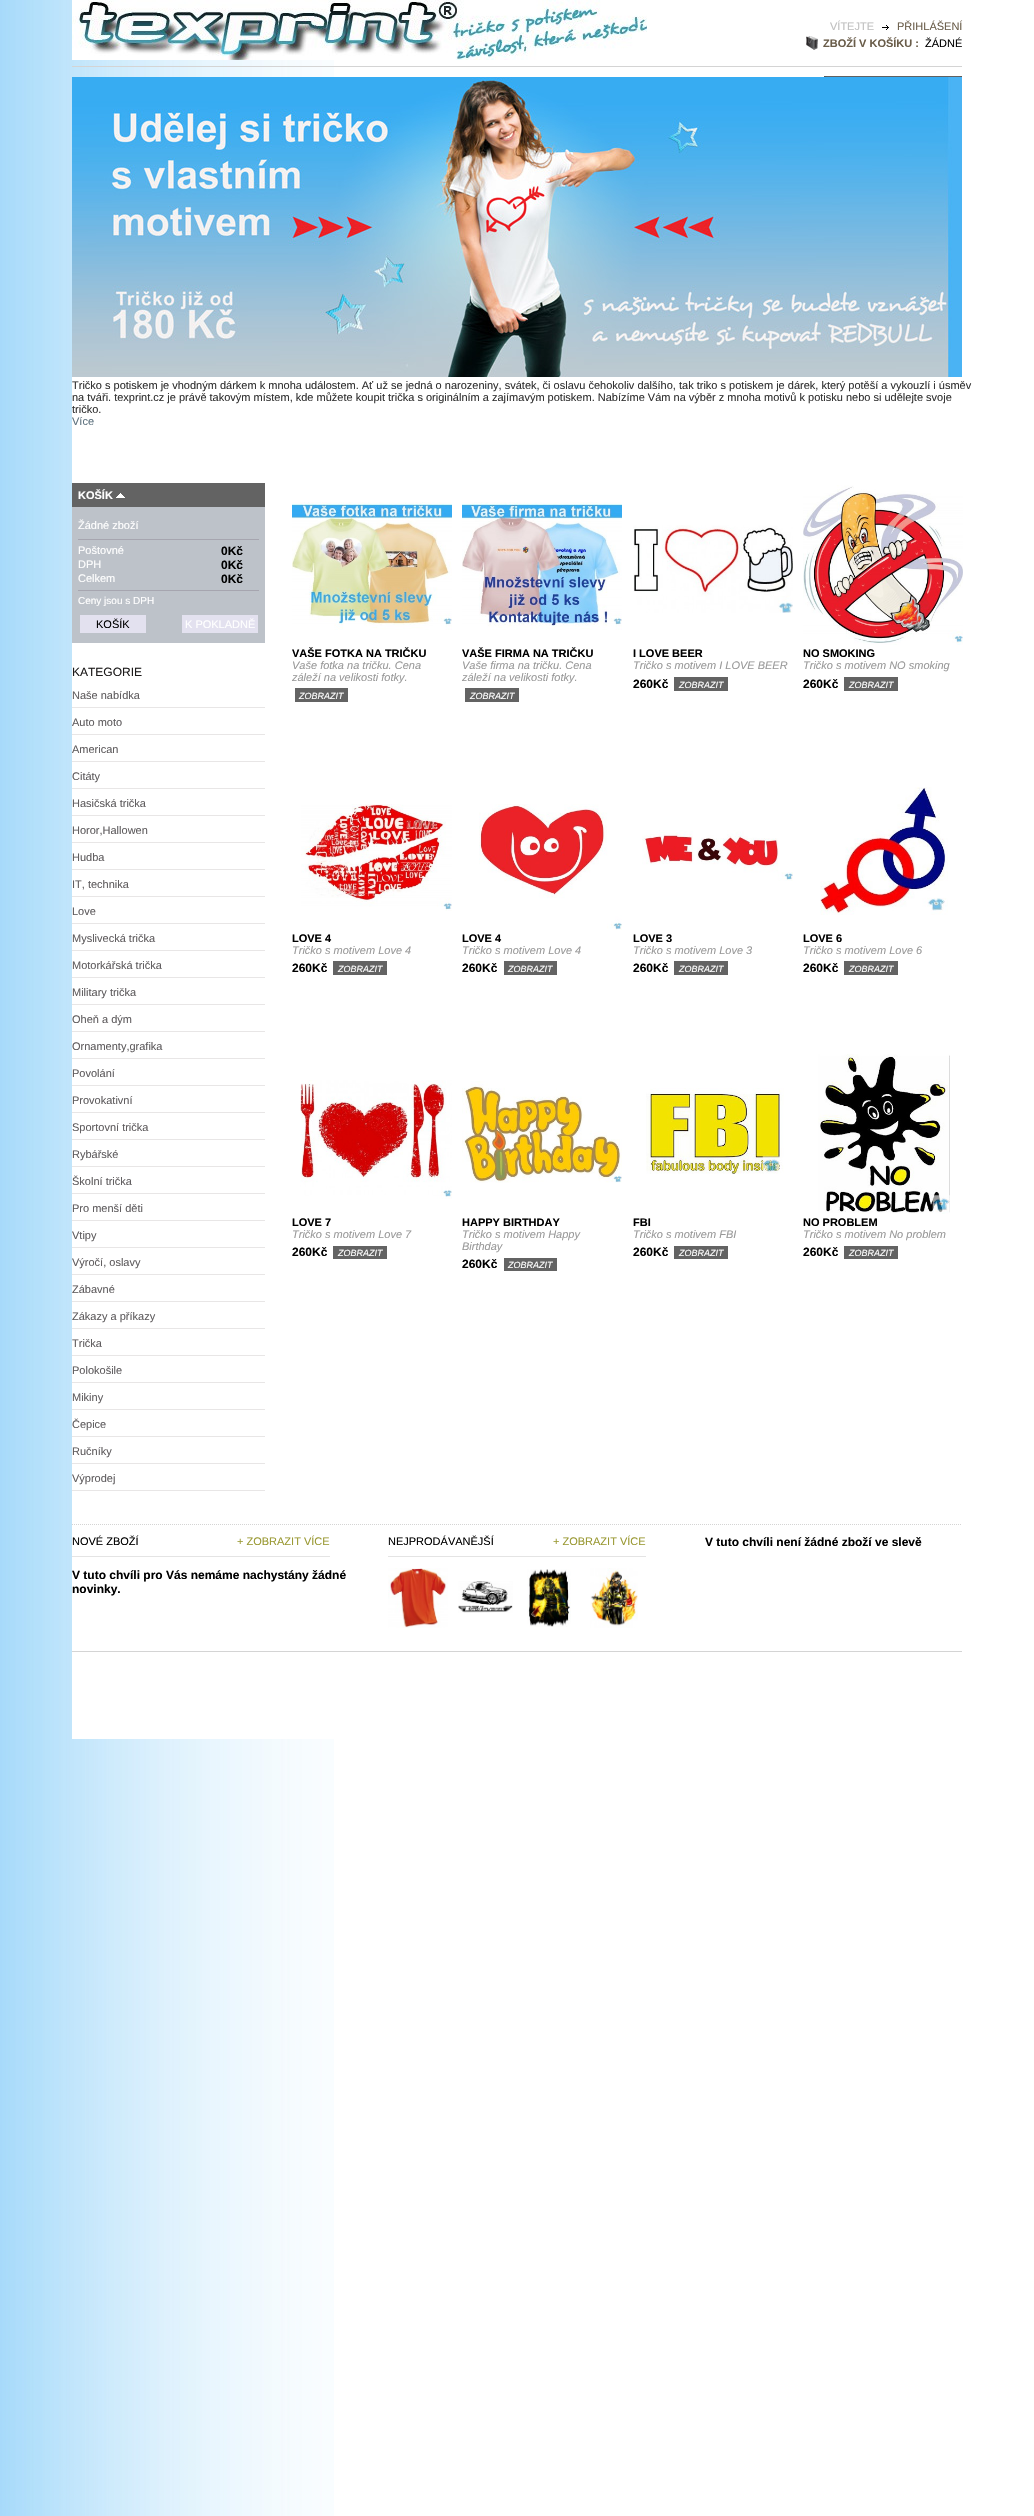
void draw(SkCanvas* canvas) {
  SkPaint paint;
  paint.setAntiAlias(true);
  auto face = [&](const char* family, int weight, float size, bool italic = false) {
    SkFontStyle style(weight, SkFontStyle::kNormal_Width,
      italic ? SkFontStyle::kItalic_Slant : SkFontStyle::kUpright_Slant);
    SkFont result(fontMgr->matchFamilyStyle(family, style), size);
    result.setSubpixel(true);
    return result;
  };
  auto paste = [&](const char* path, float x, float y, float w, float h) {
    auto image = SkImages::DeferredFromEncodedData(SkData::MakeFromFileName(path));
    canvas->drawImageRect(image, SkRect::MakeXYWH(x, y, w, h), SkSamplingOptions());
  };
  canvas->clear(0xffffffff);
  paste("img/1.png", 0, 0, 334, 2516);
  paste("img/2.png", 72, 0, 575, 60);
  paste("img/3.png", 882, 25, 7, 5);
  paste("img/4.png", 806, 36, 12, 14);
  paint.setColor(0xffd4d4d4);
  canvas->drawRect(SkRect::MakeXYWH(72, 66, 890, 1), paint);
  paste("img/5.png", 824, 76, 138, 1);
  paint.setColor(0xffffffff);
  canvas->drawRect(SkRect::MakeXYWH(72, 377, 262, 1362), paint);
  paste("img/6.png", 72, 77, 890, 300);
  paint.setColor(0xff636363);
  canvas->drawRect(SkRect::MakeXYWH(72, 483, 193, 24), paint);
  paste("img/7.png", 116, 493, 9, 5);
  {
    const struct { float x, y, w, h; SkColor color; } items[] = {
      {72, 507, 193, 136, 0xffbdc2c9},
      {78, 539, 181, 1, 0xffa6a5af},
      {78, 590, 181, 1, 0xffa6a5af},
      {80, 615, 66, 18, 0xffe3e1ef},
      {182, 615, 76, 18, 0xffe3e1ef},
      {72, 707, 193, 1, 0xffe8e6e6},
      {72, 734, 193, 1, 0xffe8e6e6},
      {72, 761, 193, 1, 0xffe8e6e6},
      {72, 788, 193, 1, 0xffe8e6e6},
      {72, 815, 193, 1, 0xffe8e6e6},
      {72, 842, 193, 1, 0xffe8e6e6},
      {72, 869, 193, 1, 0xffe8e6e6},
      {72, 896, 193, 1, 0xffe8e6e6},
      {72, 923, 193, 1, 0xffe8e6e6},
      {72, 950, 193, 1, 0xffe8e6e6},
      {72, 977, 193, 1, 0xffe8e6e6},
      {72, 1004, 193, 1, 0xffe8e6e6},
      {72, 1031, 193, 1, 0xffe8e6e6},
      {72, 1058, 193, 1, 0xffe8e6e6},
      {72, 1085, 193, 1, 0xffe8e6e6},
      {72, 1112, 193, 1, 0xffe8e6e6},
      {72, 1139, 193, 1, 0xffe8e6e6},
      {72, 1166, 193, 1, 0xffe8e6e6},
      {72, 1193, 193, 1, 0xffe8e6e6},
      {72, 1220, 193, 1, 0xffe8e6e6},
      {72, 1247, 193, 1, 0xffe8e6e6},
      {72, 1274, 193, 1, 0xffe8e6e6},
      {72, 1301, 193, 1, 0xffe8e6e6},
      {72, 1328, 193, 1, 0xffe8e6e6},
      {72, 1355, 193, 1, 0xffe8e6e6},
      {72, 1382, 193, 1, 0xffe8e6e6},
      {72, 1409, 193, 1, 0xffe8e6e6},
      {72, 1436, 193, 1, 0xffe8e6e6},
      {72, 1463, 193, 1, 0xffe8e6e6},
      {72, 1490, 193, 1, 0xffe8e6e6},
    };
    for (auto [x, y, w, h, color] : items) {
      paint.setColor(color);
      canvas->drawRect(SkRect::MakeXYWH(x, y, w, h), paint);
    }
  }
  paste("img/8.png", 292, 502, 160, 128);
  paint.setColor(0xff636363);
  canvas->drawRect(SkRect::MakeXYWH(295, 688, 53, 14), paint);
  paste("img/9.png", 462, 502, 160, 128);
  canvas->drawRect(SkRect::MakeXYWH(465, 688, 54, 14), paint);
  paste("img/10.png", 633, 525, 160, 88);
  canvas->drawRect(SkRect::MakeXYWH(674, 677, 54, 14), paint);
  paste("img/11.png", 803, 485, 160, 160);
  canvas->drawRect(SkRect::MakeXYWH(844, 677, 54, 14), paint);
  paste("img/12.png", 301, 804, 151, 107);
  canvas->drawRect(SkRect::MakeXYWH(333, 961, 54, 14), paint);
  paste("img/13.png", 479, 804, 143, 126);
  canvas->drawRect(SkRect::MakeXYWH(504, 961, 53, 14), paint);
  paste("img/14.png", 642, 830, 151, 51);
  canvas->drawRect(SkRect::MakeXYWH(674, 961, 54, 14), paint);
  paste("img/15.png", 820, 787, 128, 128);
  canvas->drawRect(SkRect::MakeXYWH(844, 961, 54, 14), paint);
  paste("img/16.png", 300, 1080, 152, 119);
  canvas->drawRect(SkRect::MakeXYWH(333, 1246, 54, 13), paint);
  paste("img/17.png", 462, 1081, 160, 102);
  canvas->drawRect(SkRect::MakeXYWH(504, 1258, 53, 13), paint);
  paste("img/18.png", 646, 1088, 138, 86);
  canvas->drawRect(SkRect::MakeXYWH(674, 1246, 54, 13), paint);
  paste("img/19.png", 818, 1054, 132, 160);
  canvas->drawRect(SkRect::MakeXYWH(844, 1246, 54, 13), paint);
  paste("img/20.png", 72, 1524, 889, 1);
  paint.setColor(0xffe4e4e4);
  canvas->drawRect(SkRect::MakeXYWH(72, 1556, 258, 1), paint);
  canvas->drawRect(SkRect::MakeXYWH(388, 1556, 258, 1), paint);
  paste("img/21.png", 388, 1568, 60, 60);
  paste("img/22.png", 458, 1581, 55, 32);
  paste("img/23.png", 527, 1569, 44, 58);
  paste("img/24.png", 590, 1568, 48, 60);
  paint.setColor(0xffd4d4d4);
  canvas->drawRect(SkRect::MakeXYWH(72, 1651, 890, 1), paint);
  auto f0 = face("Liberation Sans", 400, 11);
  paint.setColor(0xffc0c0c0);
  canvas->drawString("VÍTEJTE", 830, 30, f0, paint);
  paint.setColor(0xff6a5d4a);
  canvas->drawString("PŘIHLÁŠENÍ", 897, 30, f0, paint);
  auto f1 = face("Liberation Sans", 700, 11);
  canvas->drawString("ZBOŽÍ V KOŠÍKU :", 823, 47, f1, paint);
  paint.setColor(0xff000000);
  canvas->drawString("ŽÁDNÉ", 925, 47, f0, paint);
  paint.setColor(0xff323232);
  {
    const struct { const char* s; float x, y; } items[] = {
      {"Tričko s potiskem je vhodným dárkem k mnoha událostem. Ať už se jedná o narozeniny, svátek, či oslavu čehokoliv dalšího, tak triko s potiskem je dárek, který potěší a vykouzlí i úsměv", 72, 389},
      {"na tváři. texprint.cz je právě takovým místem, kde můžete koupit trička s originálním a zajímavým potiskem. Nabízíme Vám na výběr z mnoha motivů k potisku nebo si udělejte svoje", 72, 401},
      {"tričko.", 72, 413},
    };
    for (auto [s, x, y] : items) {
      canvas->drawString(s, x, y, f0, paint);
    }
  }
  paint.setColor(0xff5d717e);
  canvas->drawString("Více", 72, 425, f0, paint);
  paint.setColor(0xffffffff);
  canvas->drawString("KOŠÍK", 78, 499, f1, paint);
  canvas->drawString("Žádné zboží", 78, 529, f0, paint);
  canvas->drawString("Poštovné", 78, 554, f0, paint);
  auto f2 = face("Liberation Sans", 700, 12);
  paint.setColor(0xff000000);
  canvas->drawString("0Kč", 221, 555, f2, paint);
  paint.setColor(0xffffffff);
  canvas->drawString("DPH", 78, 568, f0, paint);
  paint.setColor(0xff000000);
  canvas->drawString("0Kč", 221, 569, f2, paint);
  paint.setColor(0xffffffff);
  canvas->drawString("Celkem", 78, 582, f0, paint);
  paint.setColor(0xff000000);
  canvas->drawString("0Kč", 221, 583, f2, paint);
  auto f3 = face("Liberation Sans", 400, 10);
  paint.setColor(0xffffffff);
  canvas->drawString("Ceny jsou s DPH", 78, 604, f3, paint);
  paint.setColor(0xff000000);
  canvas->drawString("KOŠÍK", 96, 628, f0, paint);
  paint.setColor(0xffffffff);
  canvas->drawString("K POKLADNĚ", 185, 628, f0, paint);
  auto f4 = face("Liberation Sans", 400, 12);
  paint.setColor(0xff1d1b1b);
  canvas->drawString("KATEGORIE", 72, 676, f4, paint);
  paint.setColor(0xff605d5f);
  {
    const struct { const char* s; float x, y; } items[] = {
      {"Naše nabídka", 72, 699},
      {"Auto moto", 72, 726},
      {"American", 72, 753},
      {"Citáty", 72, 780},
      {"Hasičská trička", 72, 807},
      {"Horor,Hallowen", 72, 834},
      {"Hudba", 72, 861},
      {"IT, technika", 72, 888},
      {"Love", 72, 915},
      {"Myslivecká trička", 72, 942},
      {"Motorkářská trička", 72, 969},
      {"Military trička", 72, 996},
      {"Oheň a dým", 72, 1023},
      {"Ornamenty,grafika", 72, 1050},
      {"Povolání", 72, 1077},
      {"Provokativní", 72, 1104},
      {"Sportovní trička", 72, 1131},
      {"Rybářské", 72, 1158},
      {"Školní trička", 72, 1185},
      {"Pro menší děti", 72, 1212},
      {"Vtipy", 72, 1239},
      {"Výročí, oslavy", 72, 1266},
      {"Zábavné", 72, 1293},
      {"Zákazy a příkazy", 72, 1320},
      {"Trička", 72, 1347},
      {"Polokošile", 72, 1374},
      {"Mikiny", 72, 1401},
      {"Čepice", 72, 1428},
      {"Ručníky", 72, 1455},
      {"Výprodej", 72, 1482},
    };
    for (auto [s, x, y] : items) {
      canvas->drawString(s, x, y, f0, paint);
    }
  }
  paint.setColor(0xff000000);
  canvas->drawString("VAŠE FOTKA NA TRIČKU", 292, 657, f1, paint);
  auto f5 = face("Liberation Sans", 400, 11, true);
  paint.setColor(0xff999999);
  canvas->drawString("Vaše fotka na tričku. Cena", 292, 669, f5, paint);
  canvas->drawString("záleží na velikosti fotky.", 292, 681, f5, paint);
  auto f6 = face("Liberation Sans", 400, 9, true);
  paint.setColor(0xffffffff);
  canvas->drawString("ZOBRAZIT", 299, 699, f6, paint);
  paint.setColor(0xff000000);
  canvas->drawString("VAŠE FIRMA NA TRIČKU", 462, 657, f1, paint);
  paint.setColor(0xff999999);
  canvas->drawString("Vaše firma na tričku. Cena", 462, 669, f5, paint);
  canvas->drawString("záleží na velikosti fotky.", 462, 681, f5, paint);
  paint.setColor(0xffffffff);
  canvas->drawString("ZOBRAZIT", 470, 699, f6, paint);
  paint.setColor(0xff000000);
  canvas->drawString("I LOVE BEER", 633, 657, f1, paint);
  paint.setColor(0xff999999);
  canvas->drawString("Tričko s motivem I LOVE BEER", 633, 669, f5, paint);
  paint.setColor(0xff000000);
  canvas->drawString("260Kč", 633, 688, f2, paint);
  paint.setColor(0xffffffff);
  canvas->drawString("ZOBRAZIT", 679, 688, f6, paint);
  paint.setColor(0xff000000);
  canvas->drawString("NO SMOKING", 803, 657, f1, paint);
  paint.setColor(0xff999999);
  canvas->drawString("Tričko s motivem NO smoking", 803, 669, f5, paint);
  paint.setColor(0xff000000);
  canvas->drawString("260Kč", 803, 688, f2, paint);
  paint.setColor(0xffffffff);
  canvas->drawString("ZOBRAZIT", 849, 688, f6, paint);
  paint.setColor(0xff000000);
  canvas->drawString("LOVE 4", 292, 942, f1, paint);
  paint.setColor(0xff999999);
  canvas->drawString("Tričko s motivem Love 4", 292, 954, f5, paint);
  paint.setColor(0xff000000);
  canvas->drawString("260Kč", 292, 972, f2, paint);
  paint.setColor(0xffffffff);
  canvas->drawString("ZOBRAZIT", 338, 972, f6, paint);
  paint.setColor(0xff000000);
  canvas->drawString("LOVE 4", 462, 942, f1, paint);
  paint.setColor(0xff999999);
  canvas->drawString("Tričko s motivem Love 4", 462, 954, f5, paint);
  paint.setColor(0xff000000);
  canvas->drawString("260Kč", 462, 972, f2, paint);
  paint.setColor(0xffffffff);
  canvas->drawString("ZOBRAZIT", 508, 972, f6, paint);
  paint.setColor(0xff000000);
  canvas->drawString("LOVE 3", 633, 942, f1, paint);
  paint.setColor(0xff999999);
  canvas->drawString("Tričko s motivem Love 3", 633, 954, f5, paint);
  paint.setColor(0xff000000);
  canvas->drawString("260Kč", 633, 972, f2, paint);
  paint.setColor(0xffffffff);
  canvas->drawString("ZOBRAZIT", 679, 972, f6, paint);
  paint.setColor(0xff000000);
  canvas->drawString("LOVE 6", 803, 942, f1, paint);
  paint.setColor(0xff999999);
  canvas->drawString("Tričko s motivem Love 6", 803, 954, f5, paint);
  paint.setColor(0xff000000);
  canvas->drawString("260Kč", 803, 972, f2, paint);
  paint.setColor(0xffffffff);
  canvas->drawString("ZOBRAZIT", 849, 972, f6, paint);
  paint.setColor(0xff000000);
  canvas->drawString("LOVE 7", 292, 1226, f1, paint);
  paint.setColor(0xff999999);
  canvas->drawString("Tričko s motivem Love 7", 292, 1238, f5, paint);
  paint.setColor(0xff000000);
  canvas->drawString("260Kč", 292, 1256, f2, paint);
  paint.setColor(0xffffffff);
  canvas->drawString("ZOBRAZIT", 338, 1256, f6, paint);
  paint.setColor(0xff000000);
  canvas->drawString("HAPPY BIRTHDAY", 462, 1226, f1, paint);
  paint.setColor(0xff999999);
  canvas->drawString("Tričko s motivem Happy", 462, 1238, f5, paint);
  canvas->drawString("Birthday", 462, 1250, f5, paint);
  paint.setColor(0xff000000);
  canvas->drawString("260Kč", 462, 1268, f2, paint);
  paint.setColor(0xffffffff);
  canvas->drawString("ZOBRAZIT", 508, 1268, f6, paint);
  paint.setColor(0xff000000);
  canvas->drawString("FBI", 633, 1226, f1, paint);
  paint.setColor(0xff999999);
  canvas->drawString("Tričko s motivem FBI", 633, 1238, f5, paint);
  paint.setColor(0xff000000);
  canvas->drawString("260Kč", 633, 1256, f2, paint);
  paint.setColor(0xffffffff);
  canvas->drawString("ZOBRAZIT", 679, 1256, f6, paint);
  paint.setColor(0xff000000);
  canvas->drawString("NO PROBLEM", 803, 1226, f1, paint);
  paint.setColor(0xff999999);
  canvas->drawString("Tričko s motivem No problem", 803, 1238, f5, paint);
  paint.setColor(0xff000000);
  canvas->drawString("260Kč", 803, 1256, f2, paint);
  paint.setColor(0xffffffff);
  canvas->drawString("ZOBRAZIT", 849, 1256, f6, paint);
  paint.setColor(0xff000000);
  canvas->drawString("NOVÉ ZBOŽÍ", 72, 1545, f0, paint);
  paint.setColor(0xff9a9933);
  canvas->drawString("+ ZOBRAZIT VÍCE", 237, 1545, f0, paint);
  paint.setColor(0xff000000);
  canvas->drawString("V tuto chvíli pro Vás nemáme nachystány žádné", 72, 1579, f2, paint);
  canvas->drawString("novinky.", 72, 1593, f2, paint);
  canvas->drawString("NEJPRODÁVANĚJŠÍ", 388, 1545, f0, paint);
  paint.setColor(0xff9a9933);
  canvas->drawString("+ ZOBRAZIT VÍCE", 553, 1545, f0, paint);
  paint.setColor(0xff000000);
  canvas->drawString("V tuto chvíli není žádné zboží ve slevě", 705, 1546, f2, paint);
}
